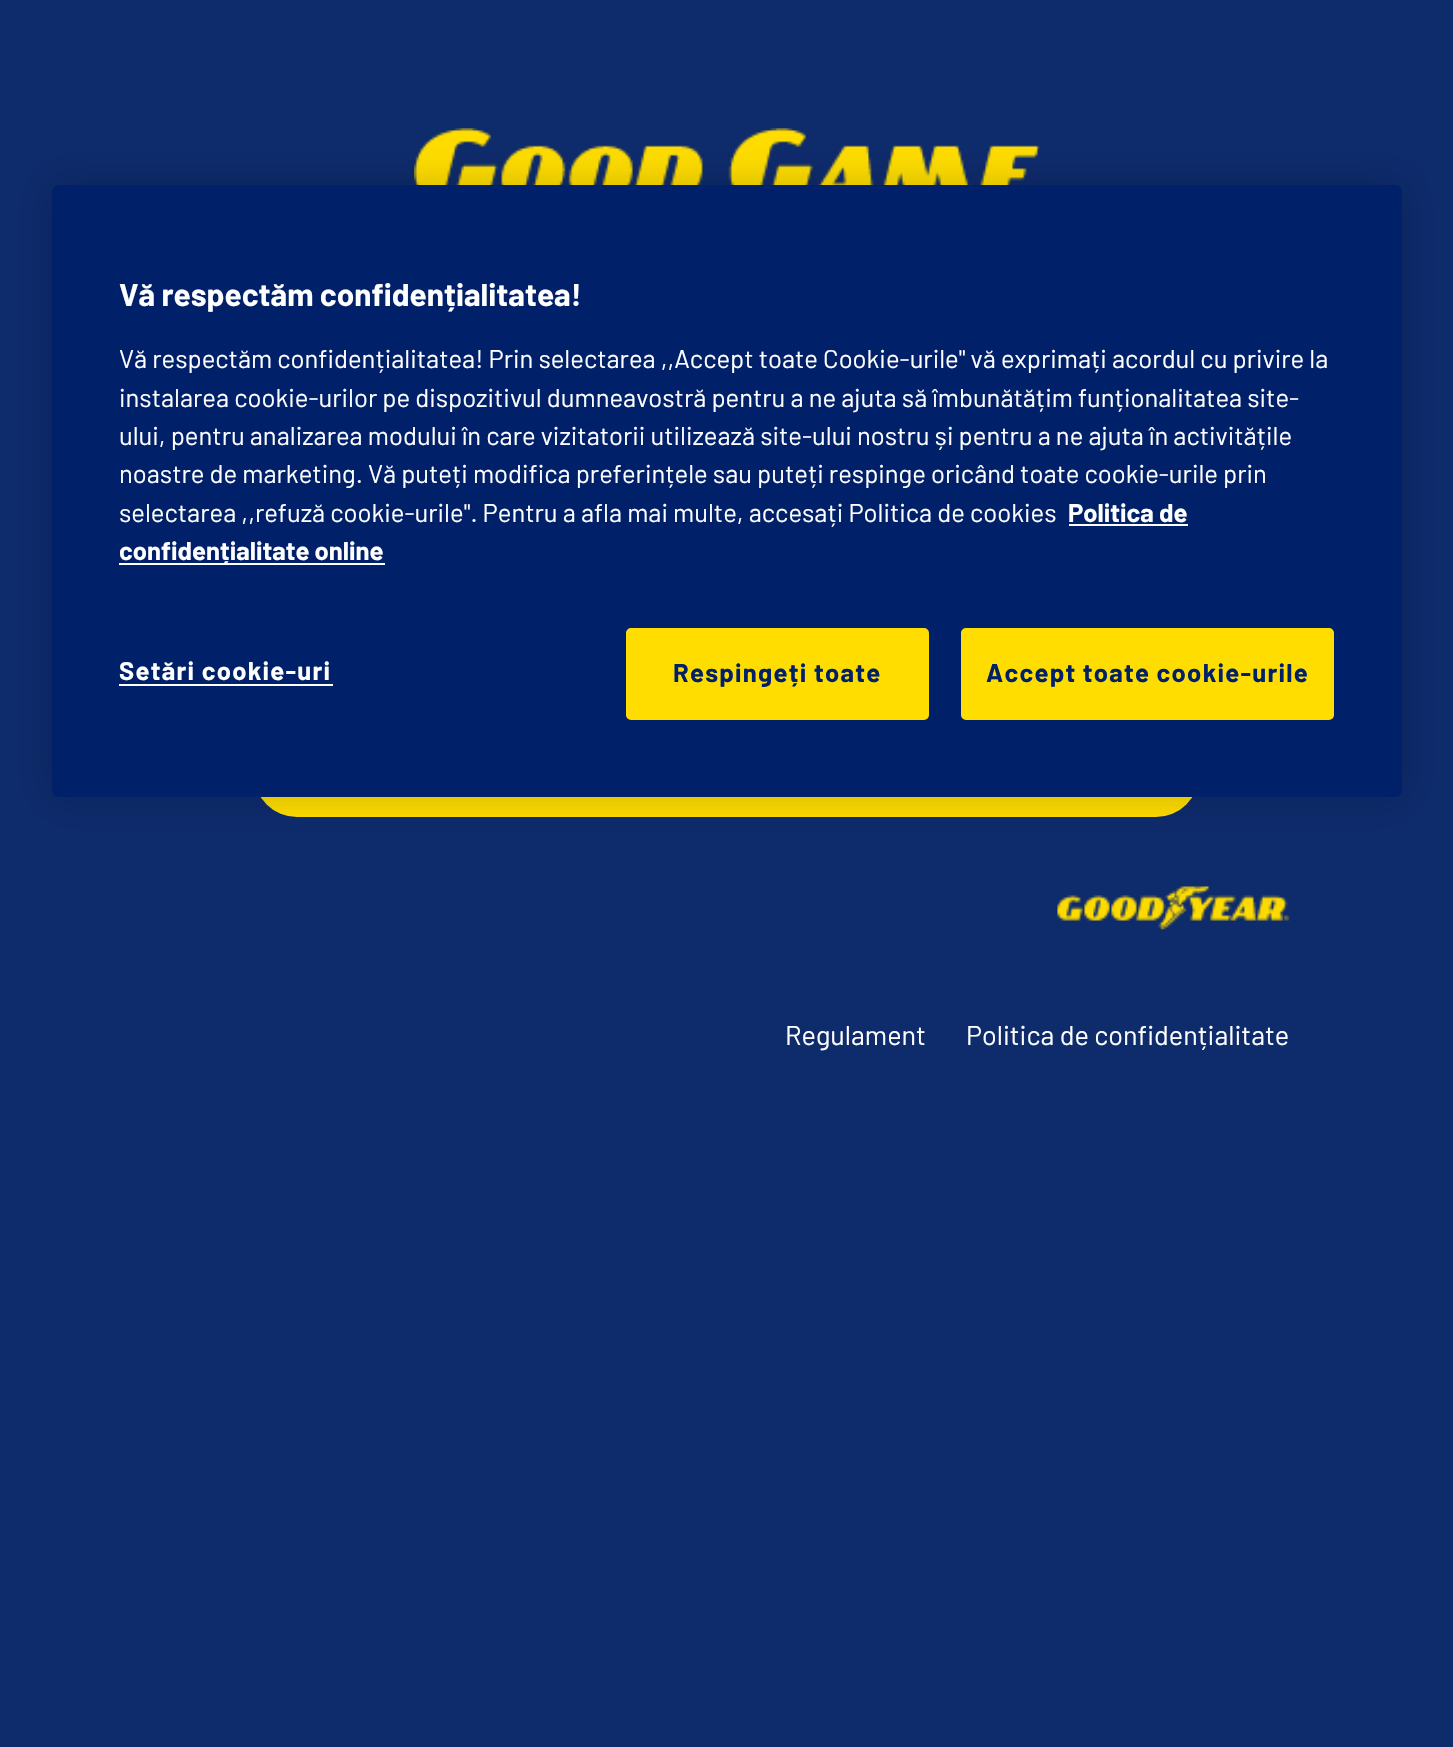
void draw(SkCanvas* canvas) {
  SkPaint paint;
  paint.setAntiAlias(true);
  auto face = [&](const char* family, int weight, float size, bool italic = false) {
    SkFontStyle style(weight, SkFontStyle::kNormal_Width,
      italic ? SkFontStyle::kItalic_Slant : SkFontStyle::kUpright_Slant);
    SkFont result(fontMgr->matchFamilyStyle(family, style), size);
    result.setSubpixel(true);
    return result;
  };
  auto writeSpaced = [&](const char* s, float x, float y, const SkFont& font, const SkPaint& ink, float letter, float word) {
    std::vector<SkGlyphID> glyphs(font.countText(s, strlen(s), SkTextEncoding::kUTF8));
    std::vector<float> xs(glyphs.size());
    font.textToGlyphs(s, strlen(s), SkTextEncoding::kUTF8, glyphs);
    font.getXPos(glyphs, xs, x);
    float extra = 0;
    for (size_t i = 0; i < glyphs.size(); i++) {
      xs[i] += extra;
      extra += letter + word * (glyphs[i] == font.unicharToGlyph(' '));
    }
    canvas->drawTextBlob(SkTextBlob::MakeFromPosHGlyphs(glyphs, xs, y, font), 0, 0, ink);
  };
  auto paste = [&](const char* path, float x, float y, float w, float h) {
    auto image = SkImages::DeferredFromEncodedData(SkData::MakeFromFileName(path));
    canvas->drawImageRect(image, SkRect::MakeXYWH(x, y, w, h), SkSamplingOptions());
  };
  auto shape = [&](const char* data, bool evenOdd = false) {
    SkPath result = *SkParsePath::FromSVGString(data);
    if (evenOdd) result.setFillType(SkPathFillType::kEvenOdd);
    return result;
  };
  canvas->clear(0xff0e2b6c);
  paste("img/1.png", 414, 128, 626, 57);
  paint.setColor(0xffffdd00);
  canvas->drawRoundRect(SkRect::MakeXYWH(254, 727, 945, 90), 43, 43, paint);
  canvas->save();
  canvas->clipPath(shape("M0 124H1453V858H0ZM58 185H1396C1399.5 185 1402 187.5 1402 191V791C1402 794.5 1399.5 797 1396 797H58C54.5 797 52 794.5 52 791V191C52 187.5 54.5 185 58 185Z", true), true);
  paint.setColor(0x33000000);
  paint.setMaskFilter(SkMaskFilter::MakeBlur(kNormal_SkBlurStyle, 20));
  canvas->drawRoundRect(SkRect::MakeXYWH(52, 185, 1350, 612), 6, 6, paint);
  paint.setMaskFilter(nullptr);
  canvas->restore();
  paint.setColor(0xff002169);
  canvas->drawRoundRect(SkRect::MakeXYWH(52, 185, 1350, 612), 6, 6, paint);
  {
    const struct { float x, y, w, h; SkColor color; } items[] = {
      {1069, 524, 119, 2, 0xffffffff},
      {119, 563, 266, 2, 0xffffffff},
      {119, 684, 214, 2, 0xffffffff},
    };
    for (auto [x, y, w, h, color] : items) {
      paint.setColor(color);
      canvas->drawRect(SkRect::MakeXYWH(x, y, w, h), paint);
    }
  }
  paint.setColor(0xffffdd00);
  canvas->drawRoundRect(SkRect::MakeXYWH(627, 629, 301, 90), 4, 4, paint);
  paint.setStroke(true);
  paint.setStrokeWidth(2);
  canvas->drawRoundRect(SkRect::MakeXYWH(627, 629, 301, 90), 4, 4, paint);
  paint.setStroke(false);
  canvas->drawRoundRect(SkRect::MakeXYWH(962, 629, 371, 90), 4, 4, paint);
  paint.setStroke(true);
  canvas->drawRoundRect(SkRect::MakeXYWH(962, 629, 371, 90), 4, 4, paint);
  paste("img/2.png", 1057, 886, 233, 44);
  auto f0 = face("Barlow", 700, 31.5f);
  paint.setStroke(false);
  paint.setColor(0xffffffff);
  canvas->drawString("Vă respectăm confidențialitatea!", 119, 306, f0, paint);
  auto f1 = face("Barlow", 400, 25.6f);
  {
    const struct { const char* s; float x, y; } items[] = {
      {"Vă respectăm confidențialitatea! Prin selectarea ,,Accept toate Cookie-urile\" vă exprimați acordul cu privire la", 119, 368},
      {"instalarea cookie-urilor pe dispozitivul dumneavostră pentru a ne ajuta să îmbunătățim funționalitatea site-", 119, 407},
      {"ului, pentru analizarea modului în care vizitatorii utilizează site-ului nostru și pentru a ne ajuta în activitățile", 119, 445},
      {"noastre de marketing. Vă puteți modifica preferințele sau puteți respinge oricând toate cookie-urile prin", 119, 483},
      {"selectarea ,,refuză cookie-urile\". Pentru a afla mai multe, accesați Politica de cookies", 119, 522},
    };
    for (auto [s, x, y] : items) {
      canvas->drawString(s, x, y, f1, paint);
    }
  }
  auto f2 = face("Barlow", 700, 25.6f);
  canvas->drawString("Politica de", 1068, 522, f2, paint);
  canvas->drawString("confidențialitate online", 119, 560, f2, paint);
  writeSpaced("Setări cookie-uri", 119, 680, f2, paint, 1.25f, 0);
  paint.setColor(0xff002169);
  writeSpaced("Respingeți toate", 673, 682, f2, paint, 1.25f, 0);
  writeSpaced("Accept toate cookie-urile", 986, 682, f2, paint, 1.25f, 0);
  auto f3 = face("Barlow", 400, 27);
  paint.setColor(0xffffffff);
  canvas->drawString("Regulament", 785, 1045, f3, paint);
  canvas->drawString("Politica de confidențialitate", 966, 1045, f3, paint);
}
